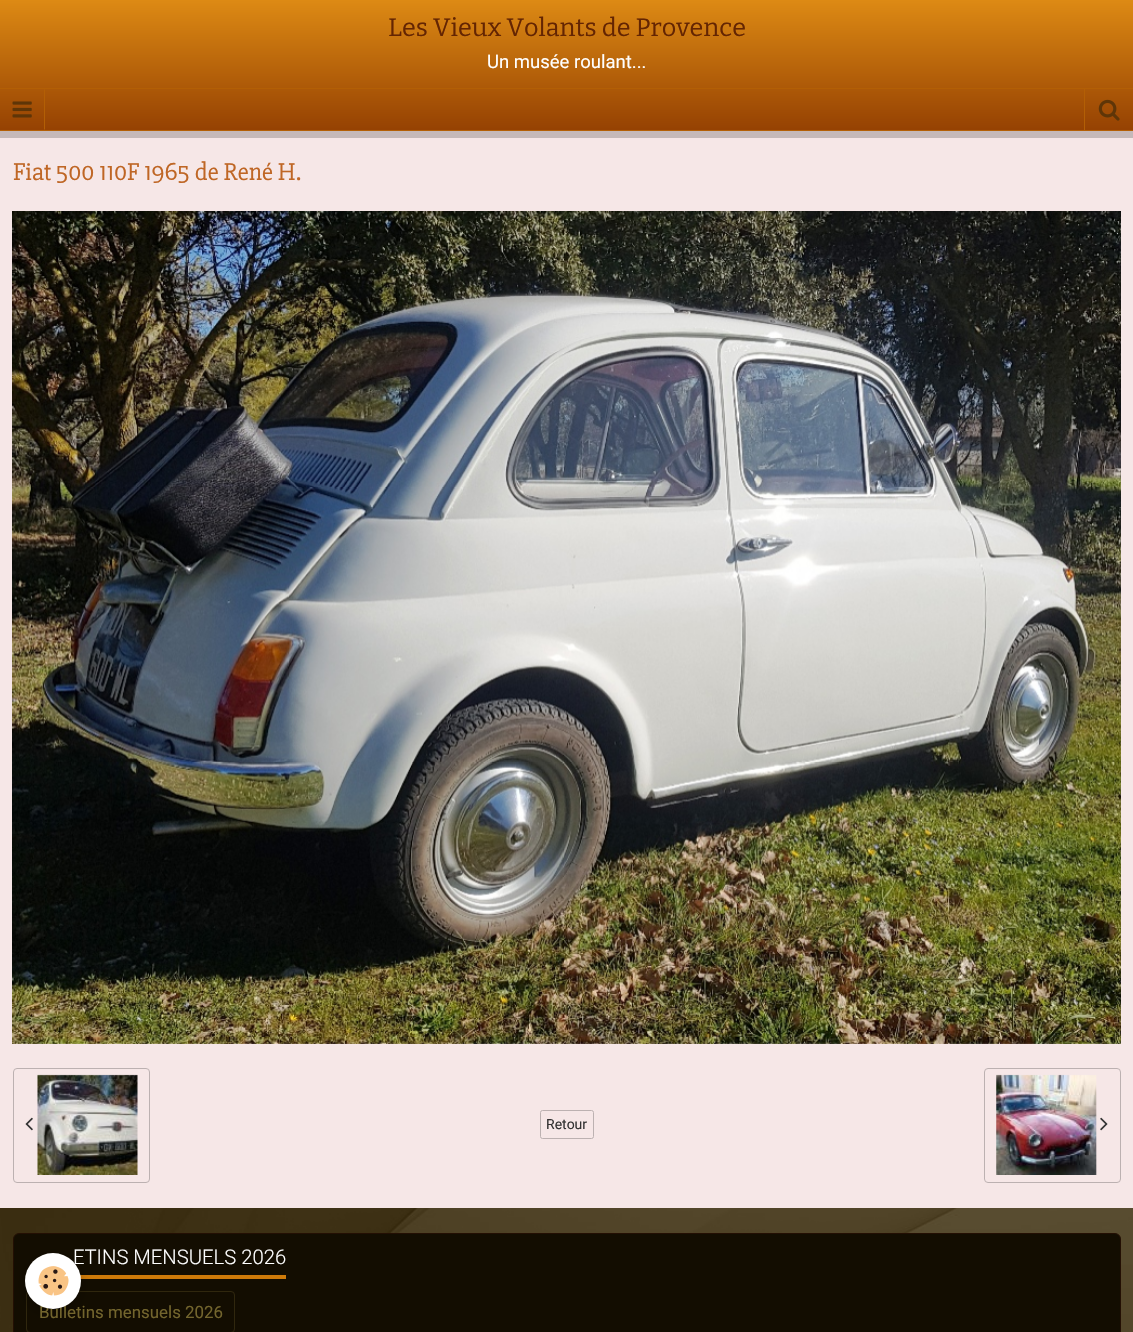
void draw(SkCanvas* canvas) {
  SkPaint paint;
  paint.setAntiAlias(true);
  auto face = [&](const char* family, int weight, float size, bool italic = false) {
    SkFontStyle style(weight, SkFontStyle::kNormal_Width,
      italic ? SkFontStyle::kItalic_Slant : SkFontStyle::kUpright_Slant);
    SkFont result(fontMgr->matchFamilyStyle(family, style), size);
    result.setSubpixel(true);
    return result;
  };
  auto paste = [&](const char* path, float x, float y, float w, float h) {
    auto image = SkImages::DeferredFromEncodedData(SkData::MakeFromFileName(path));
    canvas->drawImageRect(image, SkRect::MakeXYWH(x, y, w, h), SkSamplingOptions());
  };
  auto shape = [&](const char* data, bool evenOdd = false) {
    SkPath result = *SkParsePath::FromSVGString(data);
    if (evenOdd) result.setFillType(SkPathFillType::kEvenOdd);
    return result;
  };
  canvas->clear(0xff382806);
  paste("img/1.png", 0, 1208, 1133, 124);
  paint.setColor(0xffc5b9b9);
  canvas->drawPath(shape("M0 131V138H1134V6V131Z"), paint);
  {
    const SkColor colors[] = {0xffdd8a14, 0xff954102};
    const float stops[] = {0, 1};
    const SkPoint ends[] = {{567, 0}, {567, 131}};
    paint.setShader(SkGradientShader::MakeLinear(ends, colors, stops, 2, SkTileMode::kClamp));
    paint.setAlpha(255);
  }
  canvas->drawRect(SkRect::MakeXYWH(0, 0, 1133, 130), paint);
  paint.setShader(nullptr);
  paint.setColor(0xffb35f05);
  canvas->drawRect(SkRect::MakeXYWH(0, 88, 1133, 1), paint);
  canvas->drawRect(SkRect::MakeXYWH(0, 130, 1133, 1), paint);
  canvas->drawPath(shape("M45 89V130L44 129V90Z"), paint);
  paste("img/2.png", 12, 101, 20, 17);
  canvas->drawRect(SkRect::MakeXYWH(1084, 89, 1, 41), paint);
  paste("img/3.png", 1098, 99, 22, 22);
  paint.setColor(0xfff6e7e7);
  canvas->drawRect(SkRect::MakeXYWH(0, 138, 1133, 1070), paint);
  paste("img/4.png", 12, 211, 1109, 833);
  paste("img/5.png", 25, 1117, 8, 14);
  paste("img/6.png", 37, 1074, 101, 101);
  paint.setStroke(true);
  paint.setStrokeWidth(1);
  paint.setColor(0xffbcb1b1);
  canvas->drawRoundRect(SkRect::MakeXYWH(13.5f, 1068.5f, 136, 114), 3.5f, 3.5f, paint);
  canvas->drawRoundRect(SkRect::MakeXYWH(540.5f, 1110.5f, 53, 28), 2, 2, paint);
  paste("img/7.png", 996, 1074, 101, 101);
  paste("img/8.png", 1100, 1117, 8, 14);
  canvas->drawRoundRect(SkRect::MakeXYWH(984.5f, 1068.5f, 136, 114), 3.5f, 3.5f, paint);
  paint.setStroke(false);
  paint.setColor(0xff130d01);
  canvas->drawRoundRect(SkRect::MakeXYWH(13.5f, 1233.5f, 1107, 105), 5.5f, 5.5f, paint);
  paint.setStroke(true);
  paint.setColor(0xff230f03);
  canvas->drawRoundRect(SkRect::MakeXYWH(13.5f, 1233.5f, 1107, 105), 5.5f, 5.5f, paint);
  paint.setStroke(false);
  paint.setColor(0xffce7a09);
  canvas->drawRect(SkRect::MakeXYWH(80, 1275, 206, 4), paint);
  paint.setStroke(true);
  paint.setColor(0xff30270e);
  canvas->drawRoundRect(SkRect::MakeXYWH(26.5f, 1291.5f, 208, 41), 3.5f, 3.5f, paint);
  paint.setStroke(false);
  paint.setColor(0x3d000000);
  paint.setMaskFilter(SkMaskFilter::MakeBlur(kNormal_SkBlurStyle, 6));
  canvas->drawRoundRect(SkRect::MakeXYWH(25, 1256, 56, 57), 28, 28, paint);
  paint.setMaskFilter(nullptr);
  auto f0 = face("Bitter", 100, 25.25f);
  paint.setColor(0xff642502);
  canvas->drawString("Les Vieux Volants de Provence", 388, 36, f0, paint);
  auto f1 = face("Roboto", 400, 18.5f);
  paint.setColor(0xffffffff);
  canvas->drawString("Un musée roulant...", 487, 68, f1, paint);
  auto f2 = face("Slabo 27px", 400, 25.25f);
  paint.setColor(0xffbf6625);
  canvas->drawString("Fiat 500 110F 1965 de René H.", 13, 180, f2, paint);
  auto f3 = face("Roboto", 400, 14);
  paint.setColor(0xff333333);
  canvas->drawString("Retour", 546, 1129, f3, paint);
  auto f4 = face("Roboto", 300, 20.25f);
  paint.setColor(0xffffffff);
  canvas->drawString("ETINS MENSUELS 2026", 73, 1264, f4, paint);
  auto f5 = face("Roboto", 400, 16.9f);
  paint.setColor(0xff73652d);
  canvas->drawString("Bulletins mensuels 2026", 39, 1318, f5, paint);
  paint.setColor(0xffffffff);
  canvas->drawCircle(53, 1281, 28, paint);
  paste("img/9.png", 38, 1266, 31, 30);
}
